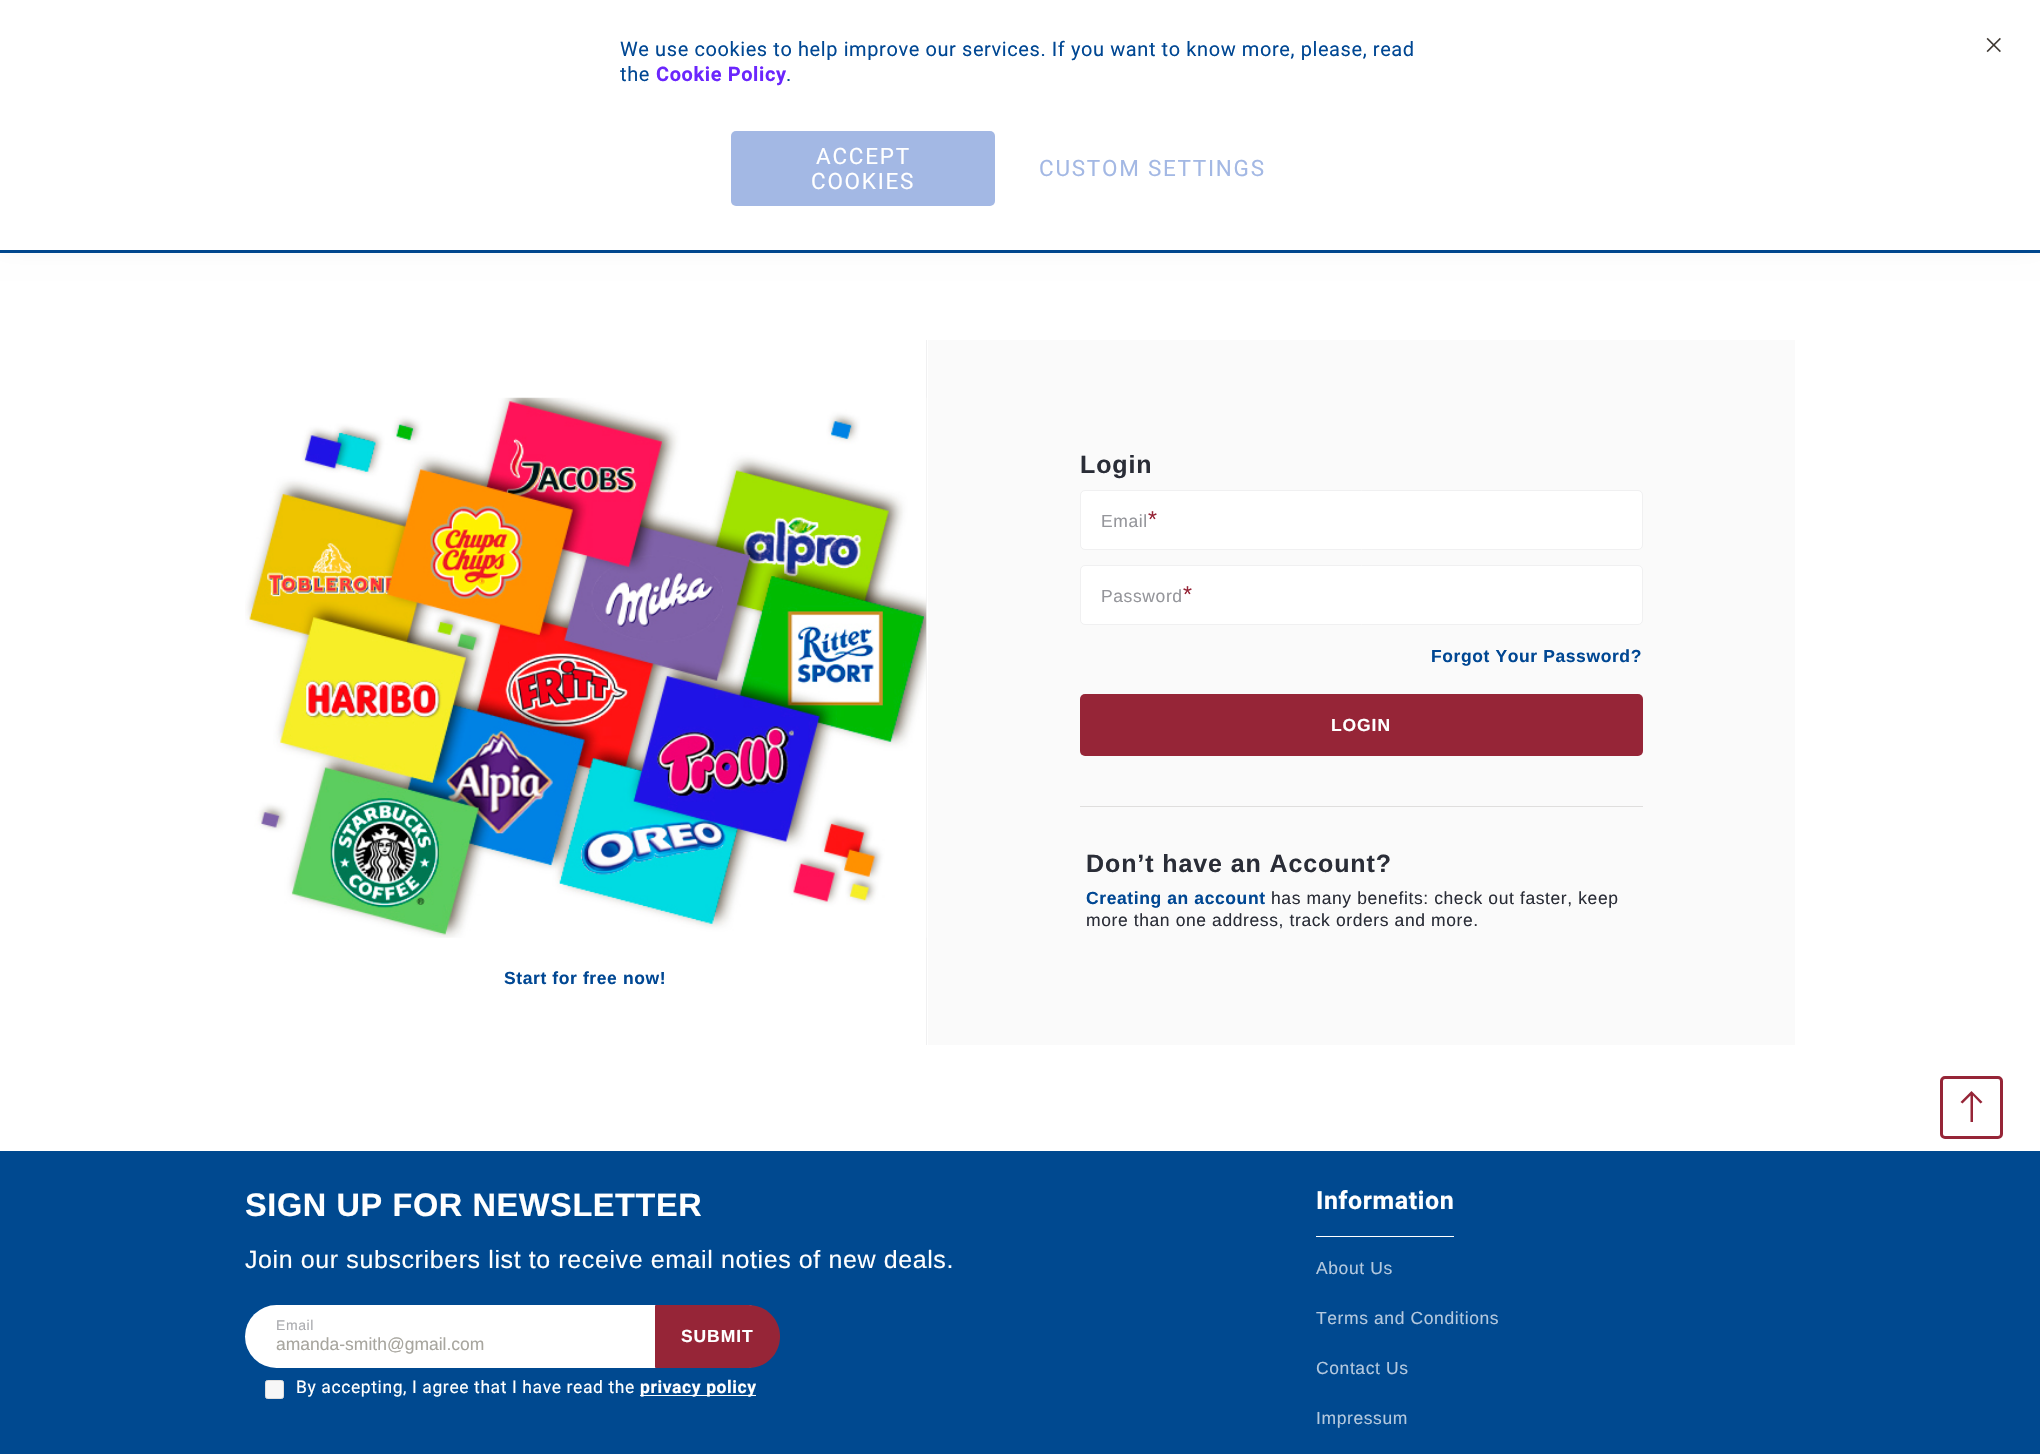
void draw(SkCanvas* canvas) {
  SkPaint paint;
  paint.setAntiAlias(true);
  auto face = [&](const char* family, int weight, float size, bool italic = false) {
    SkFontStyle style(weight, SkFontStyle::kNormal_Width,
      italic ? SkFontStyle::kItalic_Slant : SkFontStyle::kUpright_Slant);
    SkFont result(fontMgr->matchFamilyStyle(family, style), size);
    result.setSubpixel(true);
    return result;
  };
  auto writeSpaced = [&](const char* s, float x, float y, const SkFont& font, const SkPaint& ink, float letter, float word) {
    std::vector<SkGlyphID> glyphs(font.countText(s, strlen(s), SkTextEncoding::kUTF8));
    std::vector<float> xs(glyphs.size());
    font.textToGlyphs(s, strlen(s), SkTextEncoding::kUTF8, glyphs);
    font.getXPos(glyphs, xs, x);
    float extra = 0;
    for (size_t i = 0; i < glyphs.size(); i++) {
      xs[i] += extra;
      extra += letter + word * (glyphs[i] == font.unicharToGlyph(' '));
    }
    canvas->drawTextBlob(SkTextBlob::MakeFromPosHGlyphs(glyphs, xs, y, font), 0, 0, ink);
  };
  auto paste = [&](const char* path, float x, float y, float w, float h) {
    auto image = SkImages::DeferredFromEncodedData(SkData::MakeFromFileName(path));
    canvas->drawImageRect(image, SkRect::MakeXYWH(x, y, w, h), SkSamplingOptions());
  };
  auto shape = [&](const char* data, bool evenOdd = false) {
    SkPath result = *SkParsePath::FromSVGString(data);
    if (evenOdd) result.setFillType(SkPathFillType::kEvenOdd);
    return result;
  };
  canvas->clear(0xffffffff);
  paint.setColor(0xff004890);
  canvas->drawRect(SkRect::MakeXYWH(0, 250, 2040, 3), paint);
  paint.setColor(0x0f000000);
  paint.setMaskFilter(SkMaskFilter::MakeBlur(kNormal_SkBlurStyle, 11));
  canvas->drawRect(SkRect::MakeXYWH(0, -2, 2040, 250), paint);
  paint.setMaskFilter(nullptr);
  paint.setColor(0xffffffff);
  canvas->drawRect(SkRect::MakeXYWH(0, 0, 2040, 250), paint);
  paint.setColor(0xffa3b8e4);
  canvas->drawRoundRect(SkRect::MakeXYWH(731, 131, 264, 75), 5, 5, paint);
  paste("img/1.png", 1986, 37, 15, 16);
  paint.setColor(0xfffafafa);
  canvas->drawRect(SkRect::MakeXYWH(928, 340, 867, 705), paint);
  paint.setColor(0xffdfdedd);
  canvas->drawRect(SkRect::MakeXYWH(1080, 806, 563, 1), paint);
  paint.setColor(0xffffffff);
  canvas->drawRoundRect(SkRect::MakeXYWH(1080.5f, 490.5f, 562, 59), 4.5f, 4.5f, paint);
  paint.setStroke(true);
  paint.setStrokeWidth(1);
  paint.setColor(0xfff0f0f1);
  canvas->drawRoundRect(SkRect::MakeXYWH(1080.5f, 490.5f, 562, 59), 4.5f, 4.5f, paint);
  paint.setStroke(false);
  paint.setColor(0xffffffff);
  canvas->drawRoundRect(SkRect::MakeXYWH(1080.5f, 565.5f, 562, 59), 4.5f, 4.5f, paint);
  paint.setStroke(true);
  paint.setColor(0xfff0f0f1);
  canvas->drawRoundRect(SkRect::MakeXYWH(1080.5f, 565.5f, 562, 59), 4.5f, 4.5f, paint);
  paint.setStroke(false);
  paint.setColor(0xff962537);
  canvas->drawRoundRect(SkRect::MakeXYWH(1080, 694, 563, 62), 5, 5, paint);
  paint.setColor(0xfff0f0f1);
  canvas->drawRect(SkRect::MakeXYWH(926, 340, 1, 705), paint);
  paste("img/2.png", 245, 397, 682, 541);
  paint.setColor(0xff004990);
  canvas->drawRect(SkRect::MakeXYWH(0, 1151, 2040, 303), paint);
  paint.setStroke(true);
  paint.setStrokeWidth(3);
  paint.setColor(0xff962537);
  canvas->drawRoundRect(SkRect::MakeXYWH(1941.5f, 1077.5f, 60, 60), 3.5f, 3.5f, paint);
  paint.setStroke(false);
  canvas->drawPath(shape("M1973 1095.5V1122H1970.5V1095.5L1962.5 1103.5L1960.5 1102L1971.5 1091L1982.5 1102L1980.5 1103.5Z"), paint);
  paint.setColor(0xffffffff);
  canvas->drawRoundRect(SkRect::MakeXYWH(245, 1305, 531, 63), 31.5f, 31.5f, paint);
  paint.setColor(0xff962537);
  canvas->drawPath(shape("M656 1305H748.5C766 1305 780 1319 780 1336.5C780 1354 766 1368 748.5 1368H656C655.5 1368 655 1367.5 655 1367V1306C655 1305.5 655.5 1305 656 1305Z"), paint);
  paint.setColor(0xfff7f7f7);
  canvas->drawRoundRect(SkRect::MakeXYWH(265.5f, 1380.5f, 18, 18), 2, 2, paint);
  paint.setStroke(true);
  paint.setStrokeWidth(1);
  paint.setColor(0xffdfdedd);
  canvas->drawRoundRect(SkRect::MakeXYWH(265.5f, 1380.5f, 18, 18), 2, 2, paint);
  paint.setStroke(false);
  paint.setColor(0xffffffff);
  canvas->drawRect(SkRect::MakeXYWH(640, 1395, 116, 1), paint);
  canvas->drawRect(SkRect::MakeXYWH(1316, 1236, 138, 1), paint);
  auto f0 = face("Roboto", 400, 20);
  paint.setColor(0xff004793);
  writeSpaced("We use cookies to help improve our services. If you want to know more, please, read", 620, 56, f0, paint, 0.6f, 0);
  writeSpaced("the", 620, 81, f0, paint, 0.6f, 0);
  auto f1 = face("Roboto", 700, 20);
  paint.setColor(0xff6b26fd);
  writeSpaced("Cookie Policy", 656, 81, f1, paint, 0.6f, 0);
  paint.setColor(0xff004793);
  writeSpaced(".", 786, 81, f0, paint, 0.6f, 0);
  auto f2 = face("Roboto", 400, 22.5f);
  paint.setColor(0xffffffff);
  writeSpaced("ACCEPT", 816, 164, f2, paint, 1.75f, 0);
  writeSpaced("COOKIES", 811, 189, f2, paint, 1.75f, 0);
  paint.setColor(0xffa3b8e4);
  writeSpaced("CUSTOM SETTINGS", 1039, 176, f2, paint, 1.75f, 0);
  auto f3 = face("Liberation Sans", 700, 25);
  paint.setColor(0xff2a2d37);
  writeSpaced("Login", 1080, 473, f3, paint, 0.9f, 0);
  auto f4 = face("Liberation Sans", 400, 17.5f);
  paint.setColor(0xff95969b);
  writeSpaced("Email", 1101, 527, f4, paint, 0.6f, 0);
  auto f5 = face("Liberation Sans", 400, 23);
  paint.setColor(0xff962537);
  writeSpaced("*", 1148, 527, f5, paint, 0.6f, 0);
  paint.setColor(0xff95969b);
  writeSpaced("Password", 1101, 602, f4, paint, 0.6f, 0);
  paint.setColor(0xff962537);
  writeSpaced("*", 1183, 602, f5, paint, 0.6f, 0);
  auto f6 = face("Liberation Sans", 700, 17.5f);
  paint.setColor(0xff004793);
  writeSpaced("Forgot Your Password?", 1431, 662, f6, paint, 0.6f, 0);
  paint.setColor(0xffffffff);
  writeSpaced("LOGIN", 1331, 731, f6, paint, 0.9f, 0);
  paint.setColor(0xff2a2d37);
  writeSpaced("Don’t have an Account?", 1086, 872, f3, paint, 0.9f, 0);
  paint.setColor(0xff004793);
  writeSpaced("Creating an account", 1086, 904, f6, paint, 0.6f, 0);
  paint.setColor(0xff2a2d37);
  writeSpaced("has many benefits: check out faster, keep", 1271, 904, f4, paint, 0.6f, 0);
  writeSpaced("more than one address, track orders and more.", 1086, 926, f4, paint, 0.6f, 0);
  paint.setColor(0xff004793);
  writeSpaced("Start for free now!", 504, 984, f6, paint, 0.6f, 0);
  auto f7 = face("Liberation Sans", 700, 32.5f);
  paint.setColor(0xffffffff);
  writeSpaced("SIGN UP FOR NEWSLETTER", 245, 1216, f7, paint, 0.6f, 0);
  auto f8 = face("Liberation Sans", 400, 25);
  writeSpaced("Join our subscribers list to receive email noties of new deals.", 245, 1268, f8, paint, 0.6f, 0);
  auto f9 = face("Liberation Sans", 400, 14);
  paint.setColor(0xffaaabaf);
  writeSpaced("Email", 276, 1330, f9, paint, 0.6f, 0);
  paint.setColor(0xffa8a69f);
  canvas->drawString("amanda-smith@gmail.com", 276, 1350, f4, paint);
  paint.setColor(0xffffffff);
  writeSpaced("SUBMIT", 681, 1342, f6, paint, 0.9f, 0);
  auto f10 = face("Roboto", 400, 17.5f);
  writeSpaced("By accepting, I agree that I have read the", 296, 1393, f10, paint, 0.6f, 0);
  auto f11 = face("Roboto", 700, 17.5f);
  writeSpaced("privacy policy", 640, 1393, f11, paint, 0.6f, 0);
  auto f12 = face("Roboto", 700, 25);
  writeSpaced("Information", 1316, 1209, f12, paint, 0.6f, 0);
  paint.setColor(0xffb3c8de);
  {
    const struct { const char* s; float x, y; } items[] = {
      {"About Us", 1316, 1274},
      {"Terms and Conditions", 1316, 1324},
      {"Contact Us", 1316, 1374},
      {"Impressum", 1316, 1424},
    };
    for (auto [s, x, y] : items) {
      writeSpaced(s, x, y, f4, paint, 0.6f, 0);
    }
  }
}
